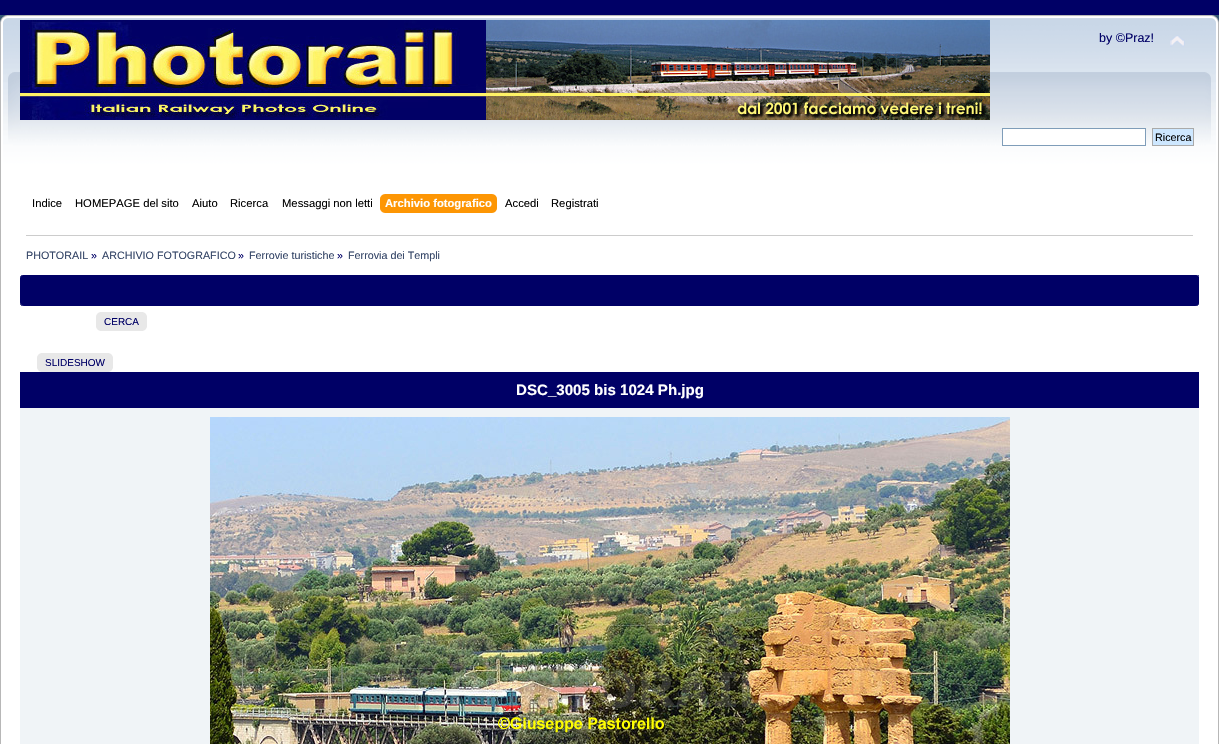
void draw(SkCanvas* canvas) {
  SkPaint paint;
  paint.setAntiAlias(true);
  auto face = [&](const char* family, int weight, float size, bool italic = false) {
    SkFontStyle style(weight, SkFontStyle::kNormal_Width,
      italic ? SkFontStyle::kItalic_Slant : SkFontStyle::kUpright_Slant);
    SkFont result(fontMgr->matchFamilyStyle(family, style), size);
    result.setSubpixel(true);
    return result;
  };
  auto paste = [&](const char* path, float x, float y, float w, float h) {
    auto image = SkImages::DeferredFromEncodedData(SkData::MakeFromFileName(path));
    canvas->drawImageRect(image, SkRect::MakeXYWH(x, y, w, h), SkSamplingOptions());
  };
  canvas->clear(0xff000066);
  paste("img/1.png", 0, 15, 1205, 214);
  paste("img/2.png", 1205, 15, 14, 214);
  paste("img/3.png", 20, 20, 970, 100);
  paste("img/4.png", 1170, 35, 15, 12);
  paint.setColor(0xffffffff);
  canvas->drawRect(SkRect::MakeXYWH(1002.5f, 128.5f, 143, 17), paint);
  paint.setStroke(true);
  paint.setStrokeWidth(1);
  paint.setColor(0xff7f9db9);
  canvas->drawRect(SkRect::MakeXYWH(1002.5f, 128.5f, 143, 17), paint);
  paint.setStroke(false);
  paint.setColor(0xffcde7ff);
  canvas->drawRect(SkRect::MakeXYWH(1152.5f, 128.5f, 41, 17), paint);
  paint.setStroke(true);
  paint.setColor(0xffaaaaaa);
  canvas->drawRect(SkRect::MakeXYWH(1152.5f, 128.5f, 41, 17), paint);
  paste("img/5.png", 385, 194, 112, 19);
  paste("img/6.png", 380, 194, 5, 19);
  paint.setStroke(false);
  {
    const struct { float x, y, w, h; SkColor color; } items[] = {
      {1, 229, 1217, 515, 0xffffffff},
      {0, 229, 1, 515, 0xffb7b7b7},
      {1218, 229, 1, 515, 0xffb7b7b7},
      {26, 235, 1167, 1, 0xffcccccc},
      {24, 275, 1171, 31, 0xff000066},
    };
    for (auto [x, y, w, h, color] : items) {
      paint.setColor(color);
      canvas->drawRect(SkRect::MakeXYWH(x, y, w, h), paint);
    }
  }
  paste("img/7.png", 20, 275, 4, 31);
  paste("img/8.png", 1195, 275, 4, 31);
  paint.setColor(0xffe8e8e8);
  canvas->drawRect(SkRect::MakeXYWH(100, 312, 43, 19), paint);
  paste("img/9.png", 96, 312, 4, 19);
  paste("img/10.png", 143, 312, 4, 19);
  canvas->drawRect(SkRect::MakeXYWH(41, 353, 68, 19), paint);
  paste("img/9.png", 37, 353, 4, 19);
  paste("img/10.png", 109, 353, 4, 19);
  paint.setColor(0xff000066);
  canvas->drawRect(SkRect::MakeXYWH(20, 372, 1179, 36), paint);
  paint.setColor(0xfff0f4f7);
  canvas->drawRect(SkRect::MakeXYWH(20, 408, 1179, 336), paint);
  paste("img/11.png", 210, 417, 800, 327);
  auto f0 = face("Liberation Sans", 400, 12.5f);
  paint.setColor(0xff000066);
  canvas->drawString("by ©Praz!", 1099, 42, f0, paint);
  auto f1 = face("Liberation Sans", 400, 10.75f);
  paint.setColor(0xff000000);
  canvas->drawString("Ricerca", 1155, 141, f1, paint);
  auto f2 = face("Liberation Sans", 400, 11.25f);
  {
    const struct { const char* s; float x, y; } items[] = {
      {"Indice", 32, 207},
      {"HOMEPAGE del sito", 75, 207},
      {"Aiuto", 192, 207},
      {"Ricerca", 230, 207},
      {"Messaggi non letti", 282, 207},
    };
    for (auto [s, x, y] : items) {
      canvas->drawString(s, x, y, f2, paint);
    }
  }
  auto f3 = face("Liberation Sans", 700, 11.25f);
  paint.setColor(0xffffffff);
  canvas->drawString("Archivio fotografico", 385, 207, f3, paint);
  paint.setColor(0xff000000);
  canvas->drawString("Accedi", 505, 207, f2, paint);
  canvas->drawString("Registrati", 551, 207, f2, paint);
  paint.setColor(0xff334466);
  canvas->drawString("PHOTORAIL", 26, 259, f1, paint);
  paint.setColor(0xff000066);
  canvas->drawString("»", 91, 259, f1, paint);
  paint.setColor(0xff334466);
  canvas->drawString("ARCHIVIO FOTOGRAFICO", 102, 259, f1, paint);
  paint.setColor(0xff000066);
  canvas->drawString("»", 238, 259, f1, paint);
  paint.setColor(0xff334466);
  canvas->drawString("Ferrovie turistiche", 249, 259, f1, paint);
  paint.setColor(0xff000066);
  canvas->drawString("»", 337, 259, f1, paint);
  paint.setColor(0xff334466);
  canvas->drawString("Ferrovia dei Templi", 348, 259, f1, paint);
  auto f4 = face("Liberation Sans", 400, 10);
  paint.setColor(0xff000066);
  canvas->drawString("CERCA", 104, 325, f4, paint);
  canvas->drawString("SLIDESHOW", 45, 366, f4, paint);
  auto f5 = face("Liberation Sans", 700, 15.1f);
  paint.setColor(0xffffffff);
  canvas->drawString("DSC_3005 bis 1024 Ph.jpg", 516, 395, f5, paint);
}
